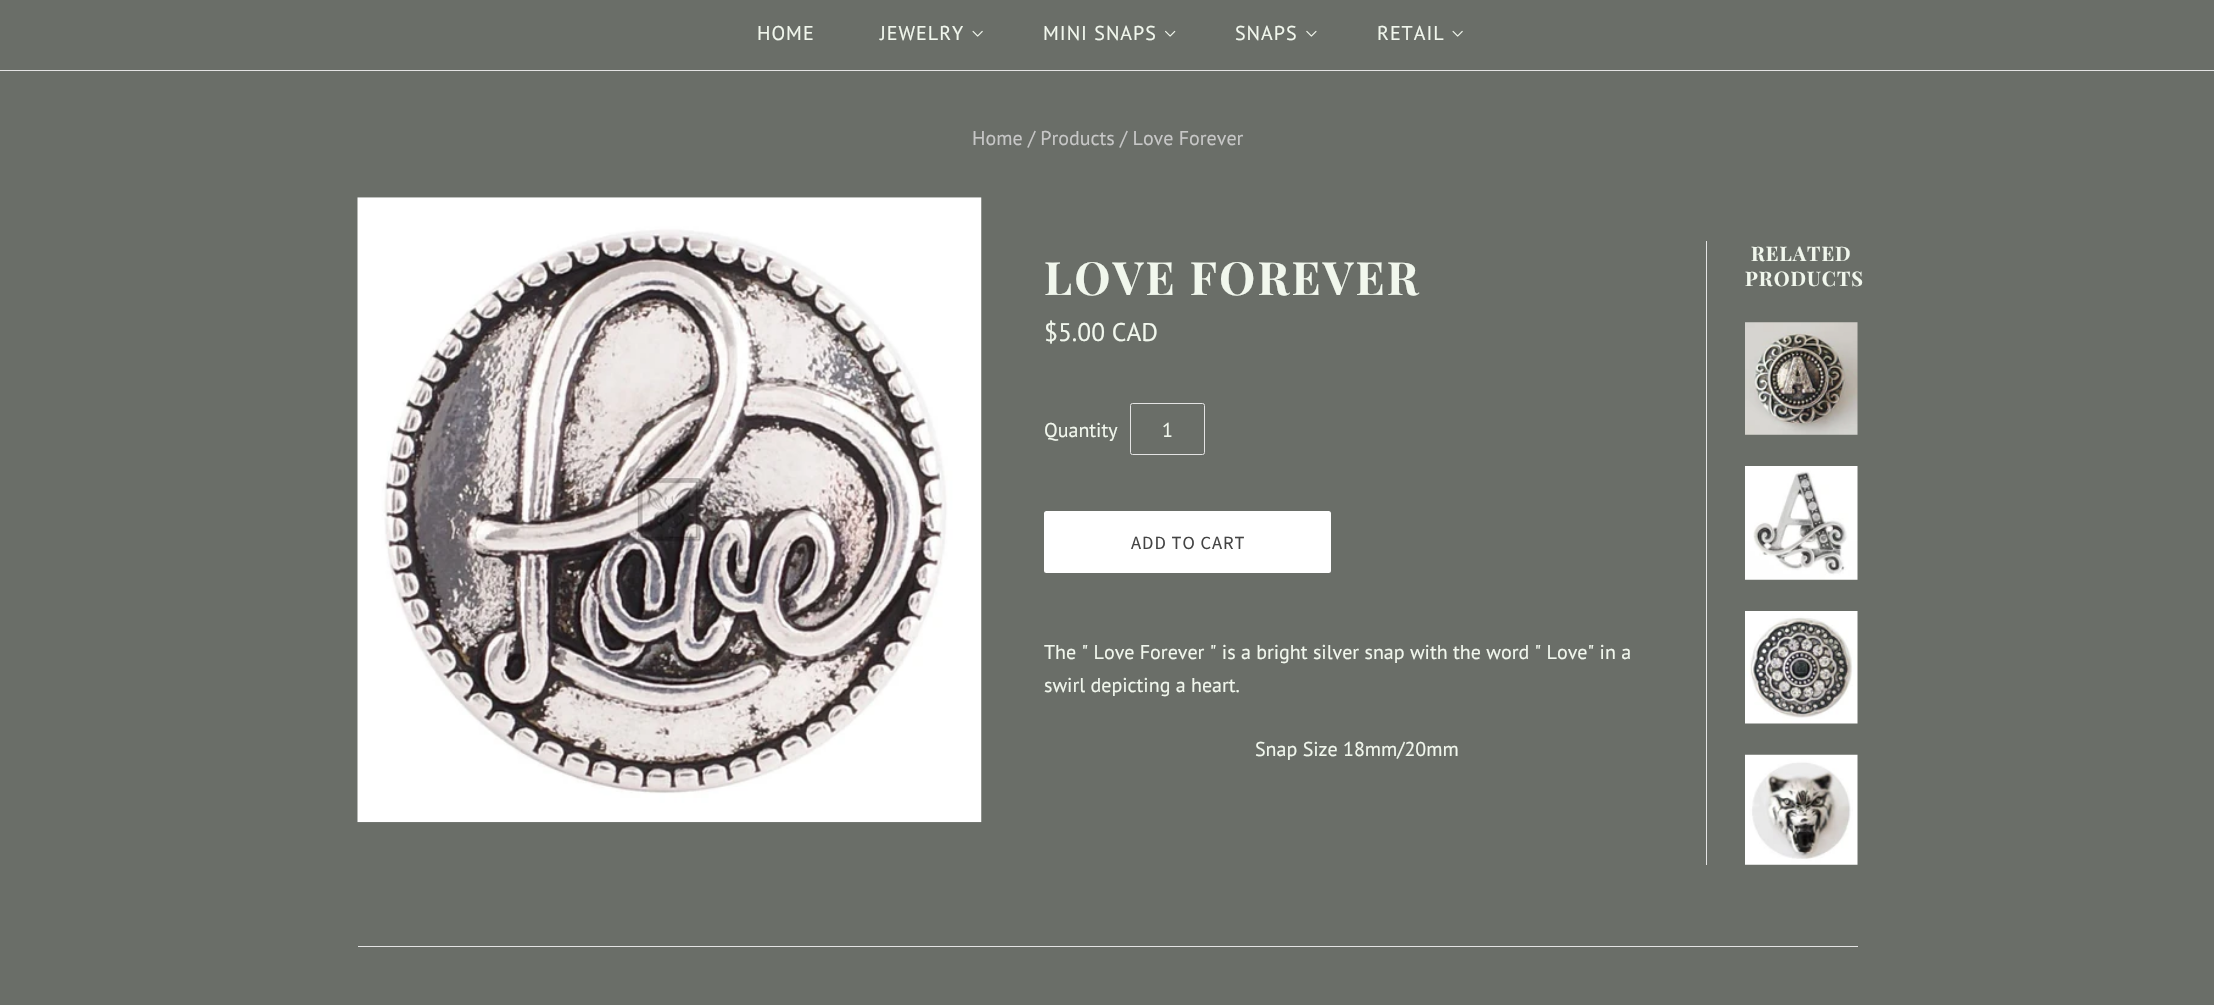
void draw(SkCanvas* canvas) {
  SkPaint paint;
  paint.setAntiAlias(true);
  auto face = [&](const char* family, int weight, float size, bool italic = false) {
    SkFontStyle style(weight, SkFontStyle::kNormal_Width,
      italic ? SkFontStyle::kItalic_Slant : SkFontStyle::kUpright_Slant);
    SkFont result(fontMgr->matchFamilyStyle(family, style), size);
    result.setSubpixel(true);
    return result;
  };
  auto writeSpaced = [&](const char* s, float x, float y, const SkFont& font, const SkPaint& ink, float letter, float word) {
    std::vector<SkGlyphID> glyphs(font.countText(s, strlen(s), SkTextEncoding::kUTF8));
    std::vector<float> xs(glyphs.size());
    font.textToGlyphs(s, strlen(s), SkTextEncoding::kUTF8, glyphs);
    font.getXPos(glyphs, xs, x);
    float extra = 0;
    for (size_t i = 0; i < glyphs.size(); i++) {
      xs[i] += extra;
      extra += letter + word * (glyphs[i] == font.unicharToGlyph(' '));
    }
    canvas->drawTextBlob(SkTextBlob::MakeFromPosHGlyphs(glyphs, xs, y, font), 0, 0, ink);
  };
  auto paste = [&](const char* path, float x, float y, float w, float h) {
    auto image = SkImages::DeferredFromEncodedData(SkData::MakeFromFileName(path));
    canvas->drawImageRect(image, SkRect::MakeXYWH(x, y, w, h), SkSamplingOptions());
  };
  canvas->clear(0xff6a6e68);
  paint.setColor(0xffe4e4e4);
  canvas->drawRect(SkRect::MakeXYWH(0, 70, 2214, 1), paint);
  paste("img/1.png", 972, 30, 11, 7);
  paste("img/2.png", 1165, 30, 11, 7);
  paste("img/3.png", 1306, 30, 11, 7);
  paste("img/1.png", 1452, 30, 11, 7);
  paste("img/4.png", 357, 197, 625, 626);
  paint.setStroke(true);
  paint.setStrokeWidth(1);
  canvas->drawRoundRect(SkRect::MakeXYWH(1130.5f, 403.5f, 74, 51), 2, 2, paint);
  paint.setStroke(false);
  paint.setColor(0xffffffff);
  canvas->drawRoundRect(SkRect::MakeXYWH(1044, 511, 287, 62), 2.5f, 2.5f, paint);
  paint.setColor(0xffe4e4e4);
  canvas->drawRect(SkRect::MakeXYWH(1706, 241, 1, 624), paint);
  paste("img/5.png", 1745, 322, 113, 113);
  paste("img/6.png", 1745, 466, 113, 114);
  paste("img/7.png", 1745, 611, 113, 113);
  paste("img/8.png", 1745, 754, 113, 111);
  canvas->drawRect(SkRect::MakeXYWH(358, 946, 1500, 1), paint);
  auto f0 = face("PT Sans", 400, 20);
  paint.setColor(0xfff1f7ed);
  {
    const struct { const char* s; float x, y; } items[] = {
      {"HOME", 757, 40},
      {"JEWELRY", 880, 40},
      {"MINI SNAPS", 1043, 40},
      {"SNAPS", 1235, 40},
      {"RETAIL", 1377, 40},
    };
    for (auto [s, x, y] : items) {
      writeSpaced(s, x, y, f0, paint, 1, 0);
    }
  }
  paint.setColor(0xffc7c7c7);
  canvas->drawString("Home / Products / Love Forever", 972, 145, f0, paint);
  auto f1 = face("Playfair Display", 700, 45.75f);
  paint.setColor(0xfff1f7ed);
  writeSpaced("LOVE FOREVER", 1044, 295, f1, paint, 2.25f, 0);
  auto f2 = face("PT Sans", 400, 25.5f);
  canvas->drawString("$5.00 CAD", 1044, 341, f2, paint);
  canvas->drawString("Quantity", 1044, 437, f0, paint);
  canvas->drawString("1", 1162, 437, f0, paint);
  auto f3 = face("Source Sans Pro", 400, 18.5f);
  paint.setColor(0xff444444);
  writeSpaced("ADD TO CART", 1131, 549, f3, paint, 1, 0);
  paint.setColor(0xfff1f7ed);
  {
    const struct { const char* s; float x, y; } items[] = {
      {"The \" Love Forever \" is a bright silver snap with the word \" Love\" in a", 1044, 659},
      {"swirl depicting a heart.", 1044, 692},
      {"Snap Size 18mm/20mm", 1255, 756},
    };
    for (auto [s, x, y] : items) {
      canvas->drawString(s, x, y, f0, paint);
    }
  }
  auto f4 = face("Playfair Display", 700, 20);
  writeSpaced("RELATED", 1751, 261, f4, paint, 1, 0);
  writeSpaced("PRODUCTS", 1745, 286, f4, paint, 1, 0);
}
